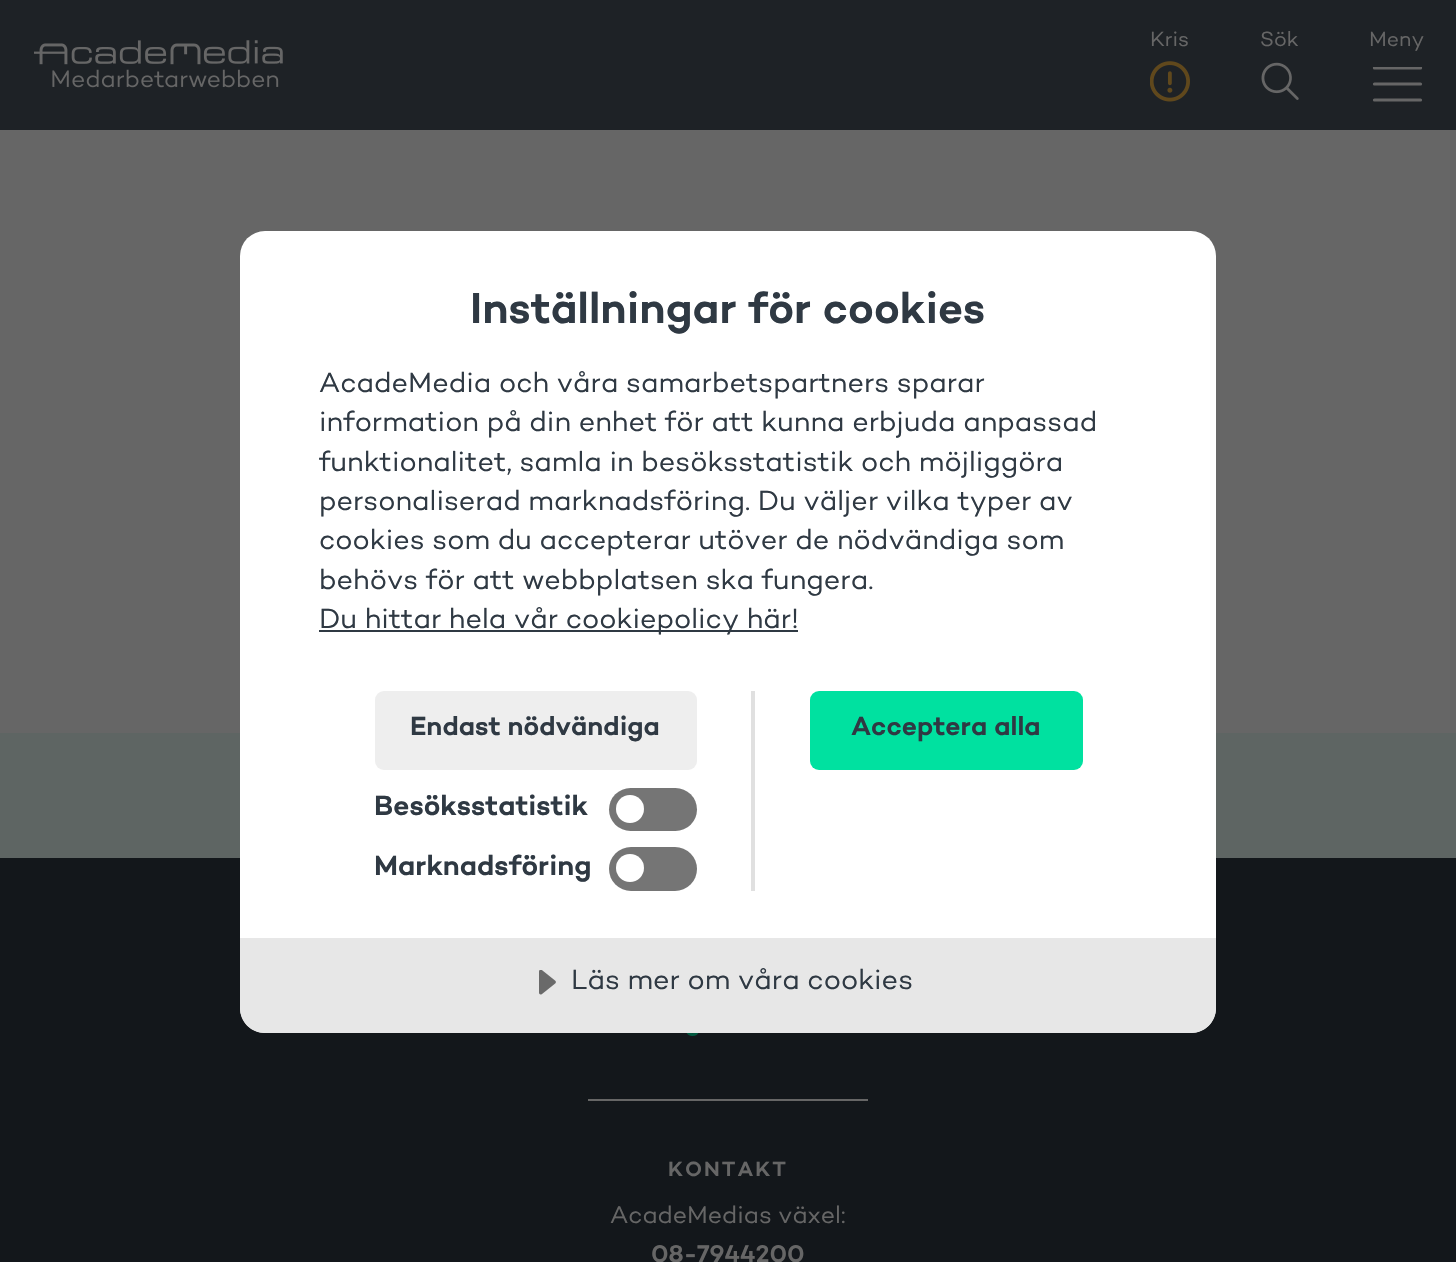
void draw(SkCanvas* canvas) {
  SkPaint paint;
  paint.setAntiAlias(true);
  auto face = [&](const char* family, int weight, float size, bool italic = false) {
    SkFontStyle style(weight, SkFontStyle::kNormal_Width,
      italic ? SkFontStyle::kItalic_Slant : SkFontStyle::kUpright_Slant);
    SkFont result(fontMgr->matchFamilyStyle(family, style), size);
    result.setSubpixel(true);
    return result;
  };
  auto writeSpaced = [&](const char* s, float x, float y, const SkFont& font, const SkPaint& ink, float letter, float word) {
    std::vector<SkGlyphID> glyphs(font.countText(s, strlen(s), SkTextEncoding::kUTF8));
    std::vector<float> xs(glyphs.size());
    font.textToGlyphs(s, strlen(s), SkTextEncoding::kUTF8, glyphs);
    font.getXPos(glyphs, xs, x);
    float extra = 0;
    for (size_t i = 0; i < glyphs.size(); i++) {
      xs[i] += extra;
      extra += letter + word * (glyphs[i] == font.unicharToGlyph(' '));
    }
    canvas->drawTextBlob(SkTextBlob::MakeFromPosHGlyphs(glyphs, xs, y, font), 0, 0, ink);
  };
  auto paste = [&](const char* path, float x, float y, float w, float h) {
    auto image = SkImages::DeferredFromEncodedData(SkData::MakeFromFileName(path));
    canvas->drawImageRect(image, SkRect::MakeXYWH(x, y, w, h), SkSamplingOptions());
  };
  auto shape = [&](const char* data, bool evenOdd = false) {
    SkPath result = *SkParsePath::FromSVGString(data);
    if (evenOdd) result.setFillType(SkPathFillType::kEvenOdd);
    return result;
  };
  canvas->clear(0xff666666);
  paint.setColor(0xff1e2226);
  canvas->drawRect(SkRect::MakeXYWH(0, 0, 1456, 130), paint);
  paste("img/1.png", 34, 40, 249, 48);
  paste("img/2.png", 1150, 61, 40, 41);
  paste("img/3.png", 1261, 62, 38, 38);
  canvas->save();
  canvas->clipRect(SkRect::MakeXYWH(1370, 67, 55, 35));
  paint.setStroke(true);
  paint.setStrokeWidth(3.2f);
  paint.setStrokeCap(SkPaint::kRound_Cap);
  paint.setStrokeJoin(SkPaint::kRound_Join);
  paint.setColor(0xff666666);
  canvas->drawPath(shape("M1374.5 68H1420.5M1374.5 84H1420.5M1374.5 100H1420.5"), paint);
  canvas->restore();
  paint.setStroke(false);
  paint.setColor(0xff5e6563);
  canvas->drawRect(SkRect::MakeXYWH(0, 733, 1456, 125), paint);
  paint.setColor(0xff13171b);
  canvas->drawRect(SkRect::MakeXYWH(0, 858, 1456, 404), paint);
  paste("img/4.png", 686, 1033, 13, 3);
  paint.setColor(0xff666666);
  canvas->drawRect(SkRect::MakeXYWH(588, 1099, 280, 2), paint);
  paint.setColor(0xffffffff);
  canvas->drawRoundRect(SkRect::MakeXYWH(240, 231, 976, 802), 25, 25, paint);
  paint.setColor(0xff2f3943);
  canvas->drawRect(SkRect::MakeXYWH(319, 630, 479, 2), paint);
  paint.setColor(0xffeeeeee);
  canvas->drawRoundRect(SkRect::MakeXYWH(375, 691, 322, 79), 9, 9, paint);
  paint.setColor(0xff757575);
  canvas->drawRoundRect(SkRect::MakeXYWH(609, 788, 88, 43), 21.5f, 21.5f, paint);
  paint.setColor(0xffffffff);
  canvas->drawCircle(630, 809, 14, paint);
  paint.setColor(0xff757575);
  canvas->drawRoundRect(SkRect::MakeXYWH(609, 847, 88, 44), 22, 22, paint);
  paint.setColor(0xffffffff);
  canvas->drawCircle(630, 868, 14, paint);
  paint.setColor(0xffe0e0e0);
  canvas->drawRect(SkRect::MakeXYWH(751, 691, 4, 200), paint);
  paint.setColor(0xff00e1a0);
  canvas->drawRoundRect(SkRect::MakeXYWH(810, 691, 273, 79), 9, 9, paint);
  paint.setColor(0xffe7e7e7);
  canvas->drawPath(shape("M240 938H1216V1008C1216 1022 1205 1033 1191 1033H265C251 1033 240 1022 240 1008Z"), paint);
  paste("img/5.png", 539, 970, 17, 25);
  auto f0 = face("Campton", 400, 21);
  paint.setColor(0xff666666);
  {
    const struct { const char* s; float x, y; } items[] = {
      {"Kris", 1150, 46},
      {"Sök", 1260, 46},
      {"Meny", 1369, 46},
    };
    for (auto [s, x, y] : items) {
      canvas->drawString(s, x, y, f0, paint);
    }
  }
  auto f1 = face("Campton", 600, 21);
  writeSpaced("KONTAKT", 668, 1176, f1, paint, 2, 0);
  auto f2 = face("Campton", 400, 24.5f);
  canvas->drawString("AcadeMedias växel:", 610, 1223, f2, paint);
  auto f3 = face("Campton", 600, 24.5f);
  canvas->drawString("08-7944200", 651, 1262, f3, paint);
  auto f4 = face("Campton", 600, 44.1f);
  paint.setColor(0xff2f3943);
  canvas->drawString("Inställningar för cookies", 470, 323, f4, paint);
  auto f5 = face("Campton", 400, 28.35f);
  {
    const struct { const char* s; float x, y; } items[] = {
      {"AcadeMedia och våra samarbetspartners sparar", 319, 392},
      {"information på din enhet för att kunna erbjuda anpassad", 319, 431},
      {"funktionalitet, samla in besöksstatistik och möjliggöra", 319, 471},
      {"personaliserad marknadsföring. Du väljer vilka typer av", 319, 510},
      {"cookies som du accepterar utöver de nödvändiga som", 319, 549},
      {"behövs för att webbplatsen ska fungera.", 319, 589},
      {"Du hittar hela vår cookiepolicy här!", 319, 628},
    };
    for (auto [s, x, y] : items) {
      canvas->drawString(s, x, y, f5, paint);
    }
  }
  auto f6 = face("Campton", 600, 26.75f);
  canvas->drawString("Endast nödvändiga", 410, 735, f6, paint);
  auto f7 = face("Campton", 600, 28.35f);
  canvas->drawString("Besöksstatistik", 374, 815, f7, paint);
  canvas->drawString("Marknadsföring", 374, 875, f7, paint);
  canvas->drawString("Acceptera alla", 851, 735, f6, paint);
  canvas->drawString("Läs mer om våra cookies", 571, 989, f5, paint);
}
